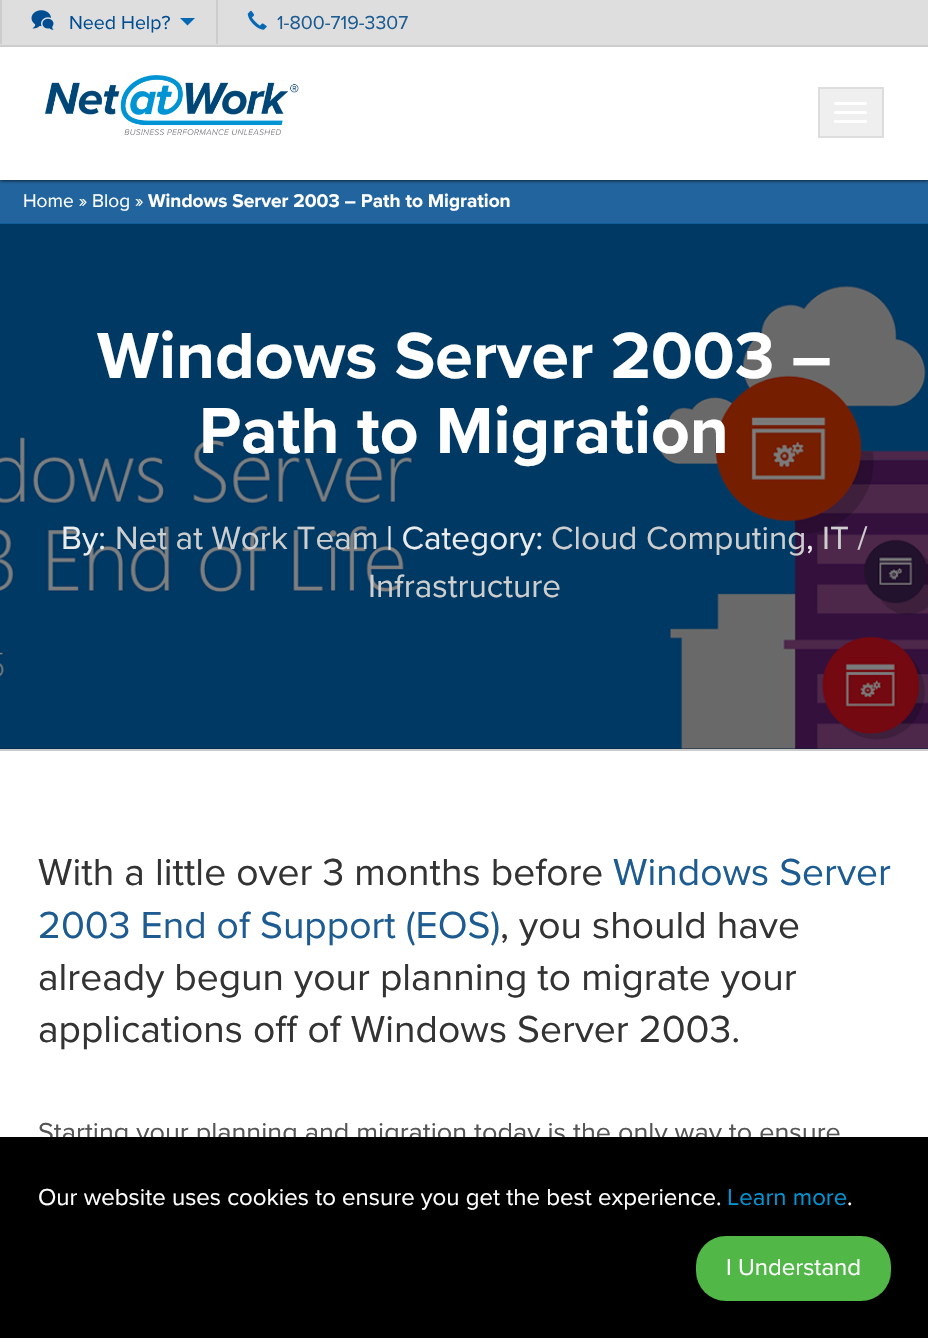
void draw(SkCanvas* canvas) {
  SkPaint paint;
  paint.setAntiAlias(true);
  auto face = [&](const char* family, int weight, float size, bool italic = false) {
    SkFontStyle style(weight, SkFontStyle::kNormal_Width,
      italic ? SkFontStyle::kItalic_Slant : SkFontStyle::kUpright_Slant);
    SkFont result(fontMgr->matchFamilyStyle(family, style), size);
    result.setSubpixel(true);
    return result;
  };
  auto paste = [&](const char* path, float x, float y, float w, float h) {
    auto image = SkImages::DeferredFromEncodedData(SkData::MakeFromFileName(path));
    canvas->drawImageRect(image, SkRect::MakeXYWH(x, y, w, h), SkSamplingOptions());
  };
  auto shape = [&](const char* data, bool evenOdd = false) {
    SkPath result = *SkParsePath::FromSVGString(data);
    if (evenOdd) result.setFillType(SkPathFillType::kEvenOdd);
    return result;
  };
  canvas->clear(0xffffffff);
  paste("img/4.png", 0, 180, 928, 44);
  paint.setColor(0xff094072);
  canvas->drawRect(SkRect::MakeXYWH(0, 748, 928, 1), paint);
  paste("img/5.png", 0, 223, 928, 526);
  paint.setColor(0xd9004d91);
  canvas->drawRect(SkRect::MakeXYWH(0, 180, 928, 44), paint);
  canvas->save();
  canvas->clipRect(SkRect::MakeXYWH(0, 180, 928, 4));
  paint.setColor(0xff000000);
  paint.setMaskFilter(SkMaskFilter::MakeBlur(kNormal_SkBlurStyle, 2));
  canvas->drawRect(SkRect::MakeXYWH(0, 47, 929, 133), paint);
  paint.setMaskFilter(nullptr);
  canvas->restore();
  {
    const struct { float x, y, w, h; SkColor color; } items[] = {
      {0, 0, 928, 45, 0xffdedede},
      {0, 45, 928, 2, 0xffcccccc},
      {216, 0, 2, 44, 0xffcccccc},
      {0, 0, 2, 44, 0xffcccccc},
    };
    for (auto [x, y, w, h, color] : items) {
      paint.setColor(color);
      canvas->drawRect(SkRect::MakeXYWH(x, y, w, h), paint);
    }
  }
  paste("img/1.png", 31, 10, 23, 20);
  paint.setColor(0xff0468b3);
  canvas->drawPath(shape("M180 18H195L187.5 25.5Z"), paint);
  paste("img/2.png", 247, 10, 20, 20);
  paste("img/3.png", 45, 75, 254, 60);
  paint.setColor(0xffefefef);
  canvas->drawRect(SkRect::MakeXYWH(819, 88, 64, 49), paint);
  paint.setStroke(true);
  paint.setStrokeWidth(2);
  paint.setColor(0xffdddddd);
  canvas->drawRect(SkRect::MakeXYWH(819, 88, 64, 49), paint);
  paint.setStroke(false);
  paint.setColor(0xffffffff);
  canvas->drawRoundRect(SkRect::MakeXYWH(834, 102, 33, 3), 1.5f, 1.5f, paint);
  canvas->drawRoundRect(SkRect::MakeXYWH(834, 111, 33, 3), 1.5f, 1.5f, paint);
  canvas->drawRoundRect(SkRect::MakeXYWH(834, 120, 33, 3), 1.5f, 1.5f, paint);
  paint.setColor(0xffcccccc);
  canvas->drawRect(SkRect::MakeXYWH(0, 749, 928, 2), paint);
  paint.setColor(0x80000000);
  canvas->drawRect(SkRect::MakeXYWH(0, 224, 928, 525), paint);
  auto f0 = face("Proxima Nova", 400, 19.5f);
  paint.setColor(0xff004d91);
  canvas->drawString("Need Help?", 69, 29, f0, paint);
  paint.setColor(0xff1d5c92);
  canvas->drawString("1-800-719-3307", 277, 29, f0, paint);
  auto f1 = face("Proxima Nova", 400, 19.1f);
  paint.setColor(0xffffffff);
  canvas->drawString("Home » Blog »", 23, 207, f1, paint);
  auto f2 = face("Proxima Nova", 700, 19.1f);
  canvas->drawString("Windows Server 2003 – Path to Migration", 148, 207, f2, paint);
  auto f3 = face("Proxima Nova", 700, 67.5f);
  canvas->drawString("Windows Server 2003 –", 97, 378, f3, paint);
  canvas->drawString("Path to Migration", 199, 453, f3, paint);
  auto f4 = face("Proxima Nova", 400, 33.25f);
  paint.setColor(0xffececec);
  canvas->drawString("By:", 61, 549, f4, paint);
  paint.setColor(0xffcecece);
  canvas->drawString("Net at Work Team", 115, 549, f4, paint);
  paint.setColor(0xffececec);
  canvas->drawString("| Category:", 386, 549, f4, paint);
  paint.setColor(0xffcecece);
  canvas->drawString("Cloud Computing", 551, 549, f4, paint);
  paint.setColor(0xffececec);
  canvas->drawString(",", 806, 549, f4, paint);
  paint.setColor(0xffcecece);
  canvas->drawString("IT /", 822, 549, f4, paint);
  canvas->drawString("Infrastructure", 368, 597, f4, paint);
  auto f5 = face("Proxima Nova", 400, 39);
  paint.setColor(0xff333333);
  canvas->drawString("With a little over 3 months before", 38, 885, f5, paint);
  paint.setColor(0xff1d5c92);
  canvas->drawString("Windows Server", 613, 885, f5, paint);
  canvas->drawString("2003 End of Support (EOS)", 38, 938, f5, paint);
  paint.setColor(0xff333333);
  {
    const struct { const char* s; float x, y; } items[] = {
      {", you should have", 500, 938},
      {"already begun your planning to migrate your", 38, 990},
      {"applications off of Windows Server 2003.", 38, 1042},
    };
    for (auto [s, x, y] : items) {
      canvas->drawString(s, x, y, f5, paint);
    }
  }
  auto f6 = face("Proxima Nova", 400, 27);
  paint.setColor(0xff555555);
  canvas->drawString("Starting your planning and migration today is the only way to ensure", 38, 1141, f6, paint);
  paint.setColor(0xff000000);
  canvas->drawRect(SkRect::MakeXYWH(0, 1137, 928, 201), paint);
  auto f7 = face("Proxima Nova", 400, 24);
  paint.setColor(0xffffffff);
  canvas->drawString("Our website uses cookies to ensure you get the best experience.", 38, 1205, f7, paint);
  paint.setColor(0xff0095d5);
  canvas->drawString("Learn more", 727, 1205, f7, paint);
  paint.setColor(0xffffffff);
  canvas->drawString(".", 847, 1205, f7, paint);
  paint.setColor(0xff51b747);
  canvas->drawRoundRect(SkRect::MakeXYWH(696, 1236, 195, 65), 30, 30, paint);
  paint.setColor(0xffffffff);
  canvas->drawString("I Understand", 726, 1275, f7, paint);
}
